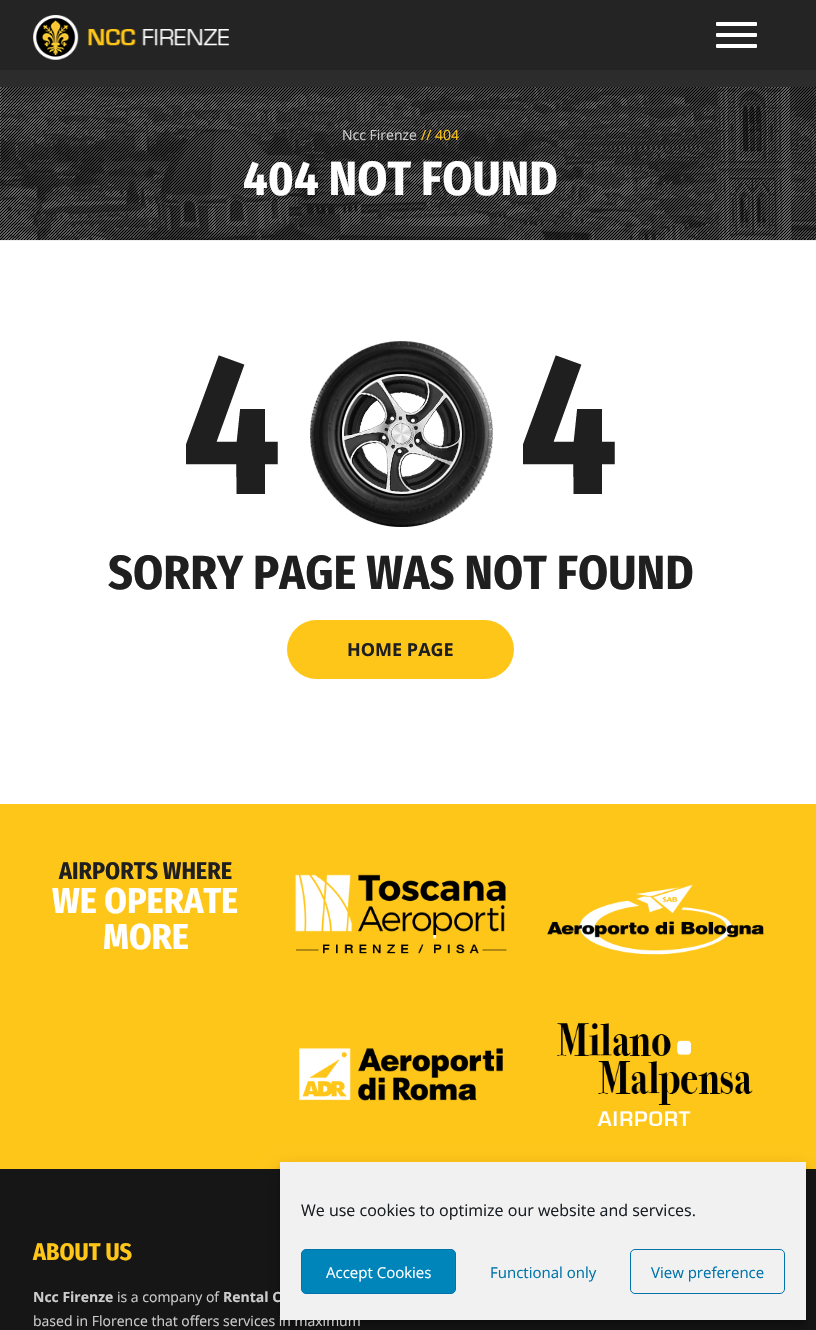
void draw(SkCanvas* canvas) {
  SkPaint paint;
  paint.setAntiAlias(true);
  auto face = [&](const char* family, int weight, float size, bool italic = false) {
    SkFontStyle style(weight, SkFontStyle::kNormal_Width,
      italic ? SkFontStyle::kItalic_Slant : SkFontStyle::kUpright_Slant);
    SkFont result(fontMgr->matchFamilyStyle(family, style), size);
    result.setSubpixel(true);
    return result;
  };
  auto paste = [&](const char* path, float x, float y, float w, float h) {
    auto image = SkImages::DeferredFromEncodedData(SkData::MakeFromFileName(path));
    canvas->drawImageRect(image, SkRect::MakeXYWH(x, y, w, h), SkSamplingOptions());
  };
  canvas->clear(0xffffffff);
  paint.setColor(0xff2c2c2c);
  canvas->drawRect(SkRect::MakeXYWH(0, 70, 816, 17), paint);
  paint.setColor(0xff242424);
  canvas->drawRect(SkRect::MakeXYWH(0, 0, 816, 70), paint);
  paste("img/1.png", 33, 15, 196, 45);
  paint.setColor(0xffffffff);
  canvas->drawRoundRect(SkRect::MakeXYWH(716, 22, 41, 4), 1, 1, paint);
  canvas->drawRoundRect(SkRect::MakeXYWH(716, 33, 41, 4), 1, 1, paint);
  canvas->drawRoundRect(SkRect::MakeXYWH(716, 44, 41, 4), 1, 1, paint);
  paste("img/2.png", 0, 87, 816, 153);
  paint.setColor(0xffeeeeee);
  canvas->drawRect(SkRect::MakeXYWH(0, 240, 816, 1), paint);
  paste("img/3.png", 0, 87, 816, 153);
  paste("img/4.png", 186, 341, 429, 186);
  paint.setColor(0xffffc61a);
  canvas->drawRoundRect(SkRect::MakeXYWH(287, 620, 227, 59), 29.5f, 29.5f, paint);
  canvas->drawRect(SkRect::MakeXYWH(0, 804, 816, 365), paint);
  paste("img/5.png", 295, 874, 212, 80);
  paste("img/6.png", 547, 885, 217, 70);
  paste("img/7.png", 299, 1048, 204, 53);
  paste("img/8.png", 556, 1023, 197, 103);
  paint.setColor(0xff161616);
  canvas->drawRect(SkRect::MakeXYWH(0, 1169, 816, 161), paint);
  paint.setColor(0x3b000000);
  paint.setMaskFilter(SkMaskFilter::MakeBlur(kNormal_SkBlurStyle, 3));
  canvas->drawRect(SkRect::MakeXYWH(280, 1168, 526, 158), paint);
  paint.setMaskFilter(nullptr);
  paint.setColor(0x30000000);
  paint.setMaskFilter(SkMaskFilter::MakeBlur(kNormal_SkBlurStyle, 10));
  canvas->drawRect(SkRect::MakeXYWH(280, 1172, 526, 158), paint);
  paint.setMaskFilter(nullptr);
  auto f0 = face("Open Sans", 400, 14);
  paint.setColor(0xffcccccc);
  canvas->drawString("Ncc Firenze", 342, 140, f0, paint);
  paint.setColor(0xffffc61a);
  canvas->drawString("// 404", 421, 140, f0, paint);
  auto f1 = face("Fira Sans Condensed", 700, 48);
  paint.setColor(0xffffffff);
  canvas->drawString("404 NOT FOUND", 243, 195, f1, paint);
  paint.setColor(0xff1f1f1f);
  canvas->drawString("SORRY PAGE WAS NOT FOUND", 108, 589, f1, paint);
  auto f2 = face("Open Sans", 700, 18);
  canvas->drawString("HOME PAGE", 347, 656, f2, paint);
  auto f3 = face("Fira Sans Condensed", 700, 24);
  canvas->drawString("AIRPORTS WHERE", 59, 879, f3, paint);
  auto f4 = face("Fira Sans Condensed", 700, 36);
  paint.setColor(0xffffffff);
  canvas->drawString("WE OPERATE", 52, 913, f4, paint);
  canvas->drawString("MORE", 103, 949, f4, paint);
  paint.setColor(0xffffc61a);
  canvas->drawString("ABOUT US", 33, 1260, f3, paint);
  auto f5 = face("Open Sans", 700, 14);
  paint.setColor(0xffcccccc);
  canvas->drawString("Ncc Firenze", 33, 1302, f5, paint);
  canvas->drawString("is a company of", 117, 1302, f0, paint);
  canvas->drawString("Rental C", 223, 1302, f5, paint);
  canvas->drawString("based in Florence that offers services in maximum", 33, 1326, f0, paint);
  paint.setColor(0xfff1f1f1);
  canvas->drawRect(SkRect::MakeXYWH(280, 1162, 526, 158), paint);
  auto f6 = face("Open Sans", 400, 16);
  paint.setColor(0xff191e23);
  canvas->drawString("We use cookies to optimize our website and services.", 301, 1216, f6, paint);
  paint.setColor(0xff0085ba);
  canvas->drawRoundRect(SkRect::MakeXYWH(301.5f, 1249.5f, 154, 44), 4.5f, 4.5f, paint);
  paint.setStroke(true);
  paint.setStrokeWidth(1);
  paint.setColor(0xff0073aa);
  canvas->drawRoundRect(SkRect::MakeXYWH(301.5f, 1249.5f, 154, 44), 4.5f, 4.5f, paint);
  auto f7 = face("Open Sans", 400, 15);
  paint.setStroke(false);
  paint.setColor(0xffffffff);
  canvas->drawString("Accept Cookies", 326, 1278, f7, paint);
  paint.setColor(0xff0073aa);
  canvas->drawString("Functional only", 490, 1278, f7, paint);
  paint.setStroke(true);
  canvas->drawRoundRect(SkRect::MakeXYWH(630.5f, 1249.5f, 154, 44), 4.5f, 4.5f, paint);
  paint.setStroke(false);
  canvas->drawString("View preference", 651, 1278, f7, paint);
}
